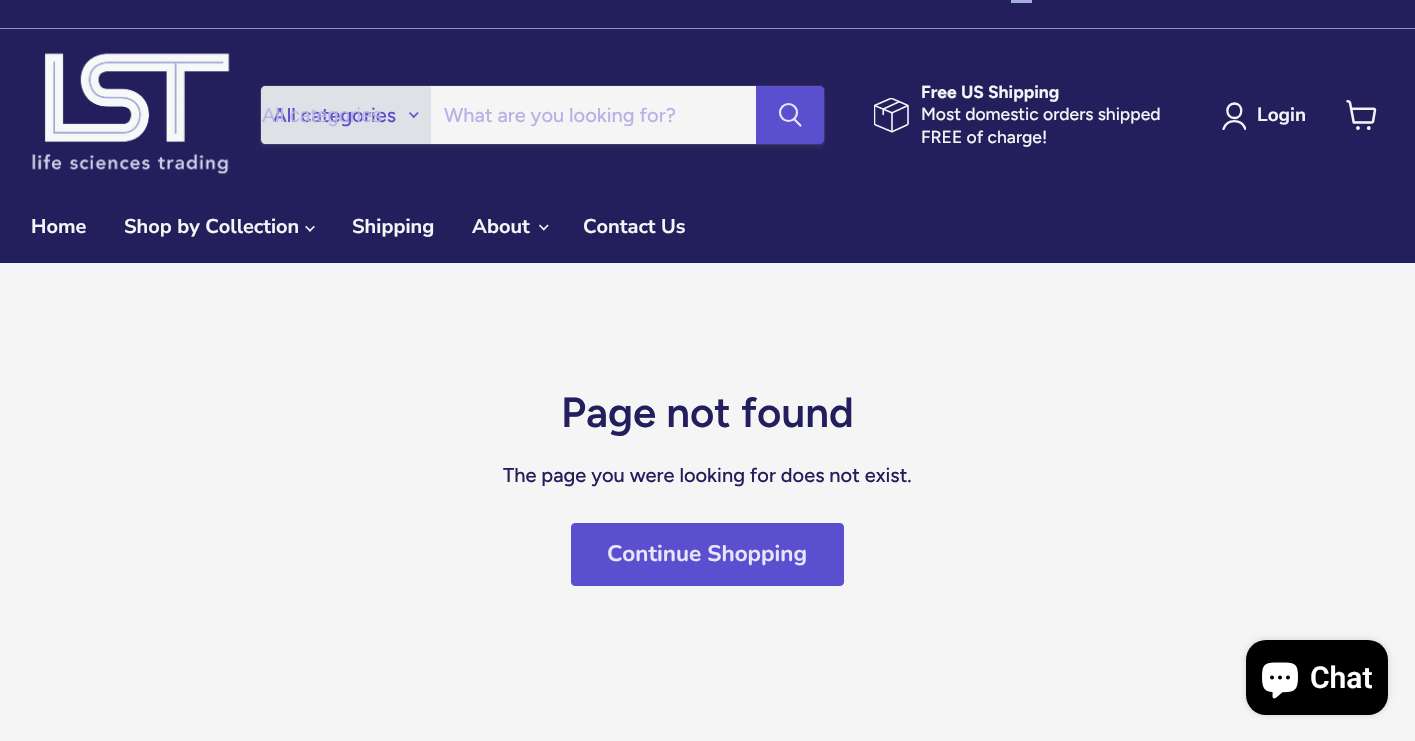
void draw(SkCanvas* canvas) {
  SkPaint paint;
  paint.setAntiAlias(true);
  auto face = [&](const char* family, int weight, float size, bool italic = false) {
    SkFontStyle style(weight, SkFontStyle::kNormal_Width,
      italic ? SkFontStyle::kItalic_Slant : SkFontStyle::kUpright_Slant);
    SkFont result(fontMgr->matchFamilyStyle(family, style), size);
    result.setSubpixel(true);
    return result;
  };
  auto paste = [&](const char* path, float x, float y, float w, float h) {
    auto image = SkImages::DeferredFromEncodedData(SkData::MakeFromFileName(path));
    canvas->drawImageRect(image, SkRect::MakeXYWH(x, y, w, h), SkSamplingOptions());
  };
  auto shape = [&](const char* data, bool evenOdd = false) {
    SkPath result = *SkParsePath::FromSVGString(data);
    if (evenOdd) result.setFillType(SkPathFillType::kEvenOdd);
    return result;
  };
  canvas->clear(0xfff5f5f6);
  {
    const struct { float x, y, w, h; SkColor color; } items[] = {
      {0, 0, 1415, 28, 0xff231e5c},
      {0, 28, 1415, 1, 0xff8492d9},
      {1011, 0, 21, 3, 0xffa5aed8},
      {0, 29, 1415, 234, 0xff231e5c},
    };
    for (auto [x, y, w, h, color] : items) {
      paint.setColor(color);
      canvas->drawRect(SkRect::MakeXYWH(x, y, w, h), paint);
    }
  }
  paste("img/1.png", 32, 53, 198, 122);
  paint.setColor(0x1c7b7b7b);
  paint.setMaskFilter(SkMaskFilter::MakeBlur(kNormal_SkBlurStyle, 2));
  canvas->drawRoundRect(SkRect::MakeXYWH(260, 88, 565, 60), 5, 5, paint);
  paint.setMaskFilter(nullptr);
  paint.setStroke(true);
  paint.setStrokeWidth(1);
  paint.setColor(0x337b7b7b);
  canvas->drawRoundRect(SkRect::MakeXYWH(260.5f, 85.5f, 564, 59), 4.5f, 4.5f, paint);
  paint.setStroke(false);
  paint.setColor(0xffe0e0e7);
  canvas->drawPath(shape("M265 86H431V144H265C263 144 261 142 261 140V90C261 88 263 86 265 86Z"), paint);
  paste("img/2.png", 409, 112, 10, 6);
  paint.setColor(0xfff5f5f6);
  canvas->drawRect(SkRect::MakeXYWH(431, 86, 325, 58), paint);
  paint.setColor(0xff5a4fcf);
  canvas->drawPath(shape("M756.5 86.5H820C822 86.5 823.5 88 823.5 90V140C823.5 142 822 143.5 820 143.5H756.5Z"), paint);
  paint.setStroke(true);
  canvas->drawPath(shape("M756.5 86.5H820C822 86.5 823.5 88 823.5 90V140C823.5 142 822 143.5 820 143.5H756.5Z"), paint);
  paint.setStrokeWidth(2.2f);
  paint.setStrokeCap(SkPaint::kRound_Cap);
  paint.setColor(0xffe6e6fa);
  canvas->drawPath(shape("M800.5 125.5L794.5 119.5"), paint);
  paint.setStrokeCap(SkPaint::kButt_Cap);
  canvas->drawCircle(788.5f, 112.5f, 8.5f, paint);
  paste("img/3.png", 874, 98, 35, 35);
  paint.setStrokeWidth(2.3f);
  paint.setStrokeCap(SkPaint::kRound_Cap);
  paint.setStrokeJoin(SkPaint::kRound_Join);
  paint.setColor(0xfff5f5f6);
  canvas->drawPath(shape("M1234.5 118C1243.5 118 1243.5 103.5 1234.5 103.5C1225 103.5 1225 118 1234.5 118Z"), paint);
  canvas->save();
  canvas->clipRect(SkRect::MakeXYWH(1221, 101, 25, 29));
  canvas->drawPath(shape("M1245.5 129C1241.5 118.5 1227 118.5 1223.5 129"), paint);
  canvas->restore();
  paste("img/4.png", 1346, 100, 31, 30);
  paste("img/5.png", 305, 225, 10, 7);
  paste("img/6.png", 539, 224, 10, 7);
  paint.setStroke(false);
  paint.setColor(0xff5a4fcf);
  canvas->drawRoundRect(SkRect::MakeXYWH(571.5f, 523.5f, 272, 62), 3.5f, 3.5f, paint);
  paint.setStroke(true);
  paint.setStrokeWidth(1);
  paint.setStrokeCap(SkPaint::kButt_Cap);
  paint.setStrokeJoin(SkPaint::kMiter_Join);
  canvas->drawRoundRect(SkRect::MakeXYWH(571.5f, 523.5f, 272, 62), 3.5f, 3.5f, paint);
  paint.setStroke(false);
  paint.setColor(0x26000000);
  paint.setMaskFilter(SkMaskFilter::MakeBlur(kNormal_SkBlurStyle, 3));
  canvas->drawRoundRect(SkRect::MakeXYWH(1246, 640, 142, 75), 20, 20, paint);
  paint.setMaskFilter(nullptr);
  paint.setColor(0xff000000);
  canvas->drawRoundRect(SkRect::MakeXYWH(1246, 640, 142, 75), 20, 20, paint);
  paste("img/7.png", 1262, 662, 36, 37);
  auto f0 = face("Figtree", 500, 20);
  paint.setColor(0xff5a4fcf);
  canvas->drawString("All categories", 273, 122, f0, paint);
  auto f1 = face("Liberation Sans", 400, 20);
  paint.setColor(0xffb8b5e0);
  canvas->drawString("All categories", 262, 122, f1, paint);
  canvas->save();
  canvas->clipRect(SkRect::MakeXYWH(444, 103, 300, 23));
  paint.setColor(0xffb7b3e6);
  canvas->drawString("What are you looking for?", 444, 122, f0, paint);
  canvas->restore();
  auto f2 = face("Figtree", 700, 17.5f);
  paint.setColor(0xfff5f5f6);
  canvas->drawString("Free US Shipping", 921, 98, f2, paint);
  auto f3 = face("Figtree", 500, 17.5f);
  canvas->drawString("Most domestic orders shipped", 921, 120, f3, paint);
  canvas->drawString("FREE of charge!", 921, 143, f3, paint);
  auto f4 = face("Nunito Sans", 700, 19);
  canvas->drawString("Login", 1257, 121, f4, paint);
  auto f5 = face("Nunito Sans", 700, 20);
  {
    const struct { const char* s; float x, y; } items[] = {
      {"Home", 31, 233},
      {"Shop by Collection", 124, 233},
      {"Shipping", 352, 233},
      {"About", 472, 233},
      {"Contact Us", 583, 233},
    };
    for (auto [s, x, y] : items) {
      canvas->drawString(s, x, y, f5, paint);
    }
  }
  auto f6 = face("Figtree", 600, 42);
  paint.setColor(0xff231e5c);
  canvas->drawString("Page not found", 561, 427, f6, paint);
  canvas->drawString("The page you were looking for does not exist.", 503, 482, f0, paint);
  auto f7 = face("Nunito", 700, 22.5f);
  paint.setColor(0xffe6e6fa);
  canvas->drawString("Continue Shopping", 607, 561, f7, paint);
  auto f8 = face("Roboto", 600, 30);
  paint.setColor(0xffffffff);
  canvas->drawString("Chat", 1310, 688, f8, paint);
}
